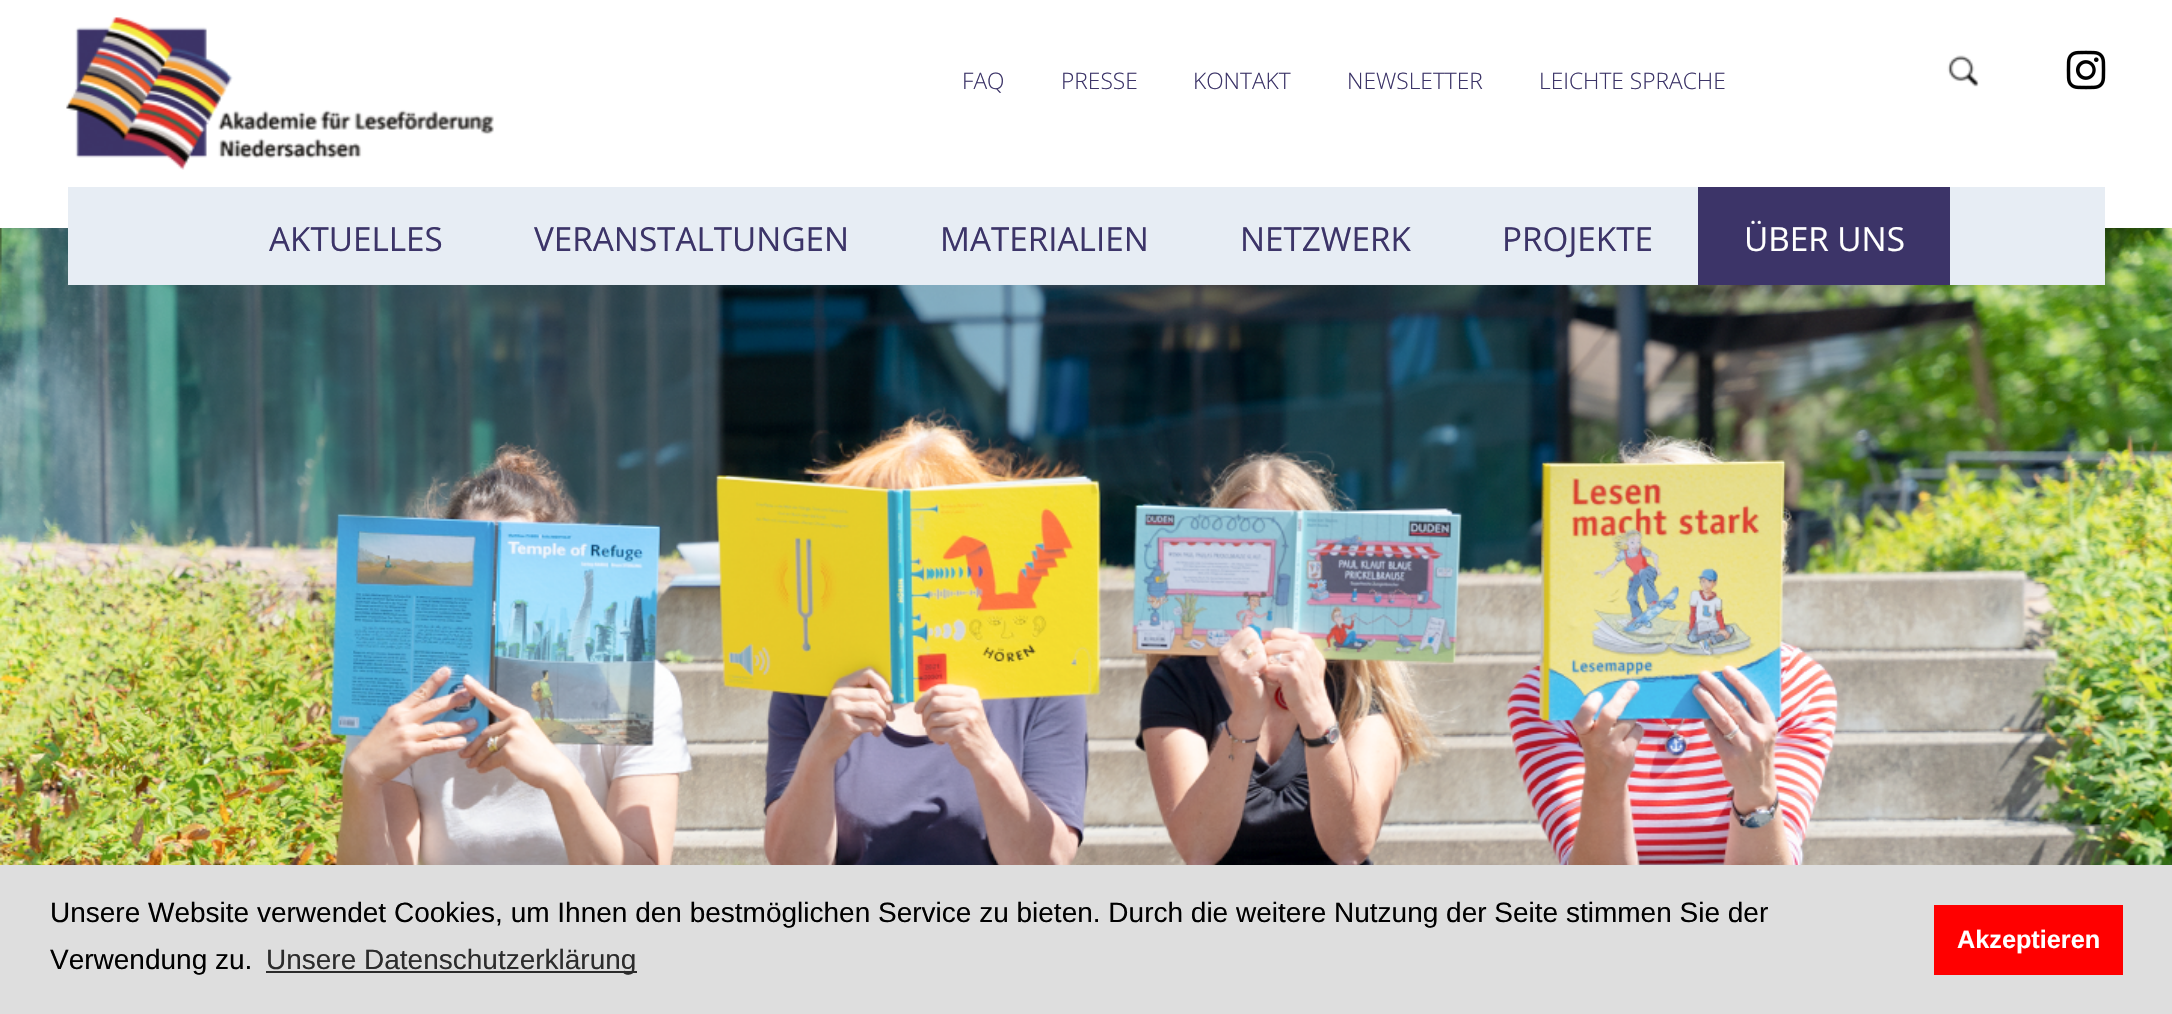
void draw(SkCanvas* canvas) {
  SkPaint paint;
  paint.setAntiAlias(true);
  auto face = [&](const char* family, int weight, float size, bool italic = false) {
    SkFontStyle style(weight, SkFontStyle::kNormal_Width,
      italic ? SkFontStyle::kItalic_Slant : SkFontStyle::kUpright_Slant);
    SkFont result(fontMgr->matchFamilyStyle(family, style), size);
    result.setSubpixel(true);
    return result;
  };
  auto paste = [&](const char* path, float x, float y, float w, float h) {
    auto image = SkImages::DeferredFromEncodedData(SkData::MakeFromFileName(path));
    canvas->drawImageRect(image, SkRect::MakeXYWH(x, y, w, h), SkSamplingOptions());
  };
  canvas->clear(0xffffffff);
  paste("img/1.png", 66, 17, 428, 153);
  paste("img/2.png", 1947, 55, 32, 32);
  paste("img/3.png", 2066, 50, 40, 40);
  paste("img/4.png", 0, 228, 2172, 637);
  {
    const struct { float x, y, w, h; SkColor color; } items[] = {
      {68, 187, 2037, 98, 0xffe7edf4},
      {1698, 187, 252, 98, 0xff3c3468},
      {0, 865, 2172, 149, 0xffdedede},
      {266, 971, 371, 2, 0xff2c2c2c},
      {1934, 905, 189, 70, 0xffff0000},
    };
    for (auto [x, y, w, h, color] : items) {
      paint.setColor(color);
      canvas->drawRect(SkRect::MakeXYWH(x, y, w, h), paint);
    }
  }
  auto f0 = face("Open Sans", 300, 22.75f);
  paint.setColor(0xff3c3468);
  {
    const struct { const char* s; float x, y; } items[] = {
      {"FAQ", 962, 89},
      {"PRESSE", 1061, 89},
      {"KONTAKT", 1193, 89},
      {"NEWSLETTER", 1347, 89},
      {"LEICHTE SPRACHE", 1539, 89},
    };
    for (auto [s, x, y] : items) {
      canvas->drawString(s, x, y, f0, paint);
    }
  }
  auto f1 = face("Open Sans", 400, 33.25f);
  {
    const struct { const char* s; float x, y; } items[] = {
      {"AKTUELLES", 269, 251},
      {"VERANSTALTUNGEN", 534, 251},
      {"MATERIALIEN", 940, 251},
      {"NETZWERK", 1240, 251},
      {"PROJEKTE", 1502, 251},
    };
    for (auto [s, x, y] : items) {
      canvas->drawString(s, x, y, f1, paint);
    }
  }
  paint.setColor(0xffffffff);
  canvas->drawString("ÜBER UNS", 1744, 251, f1, paint);
  auto f2 = face("Liberation Sans", 400, 28);
  paint.setColor(0xff000000);
  canvas->drawString("Unsere Website verwendet Cookies, um Ihnen den bestmöglichen Service zu bieten. Durch die weitere Nutzung der Seite stimmen Sie der", 50, 922, f2, paint);
  canvas->drawString("Verwendung zu.", 50, 969, f2, paint);
  paint.setColor(0xff2c2c2c);
  canvas->drawString("Unsere Datenschutzerklärung", 266, 969, f2, paint);
  auto f3 = face("Liberation Sans", 700, 25.25f);
  paint.setColor(0xffffffff);
  canvas->drawString("Akzeptieren", 1957, 948, f3, paint);
}
